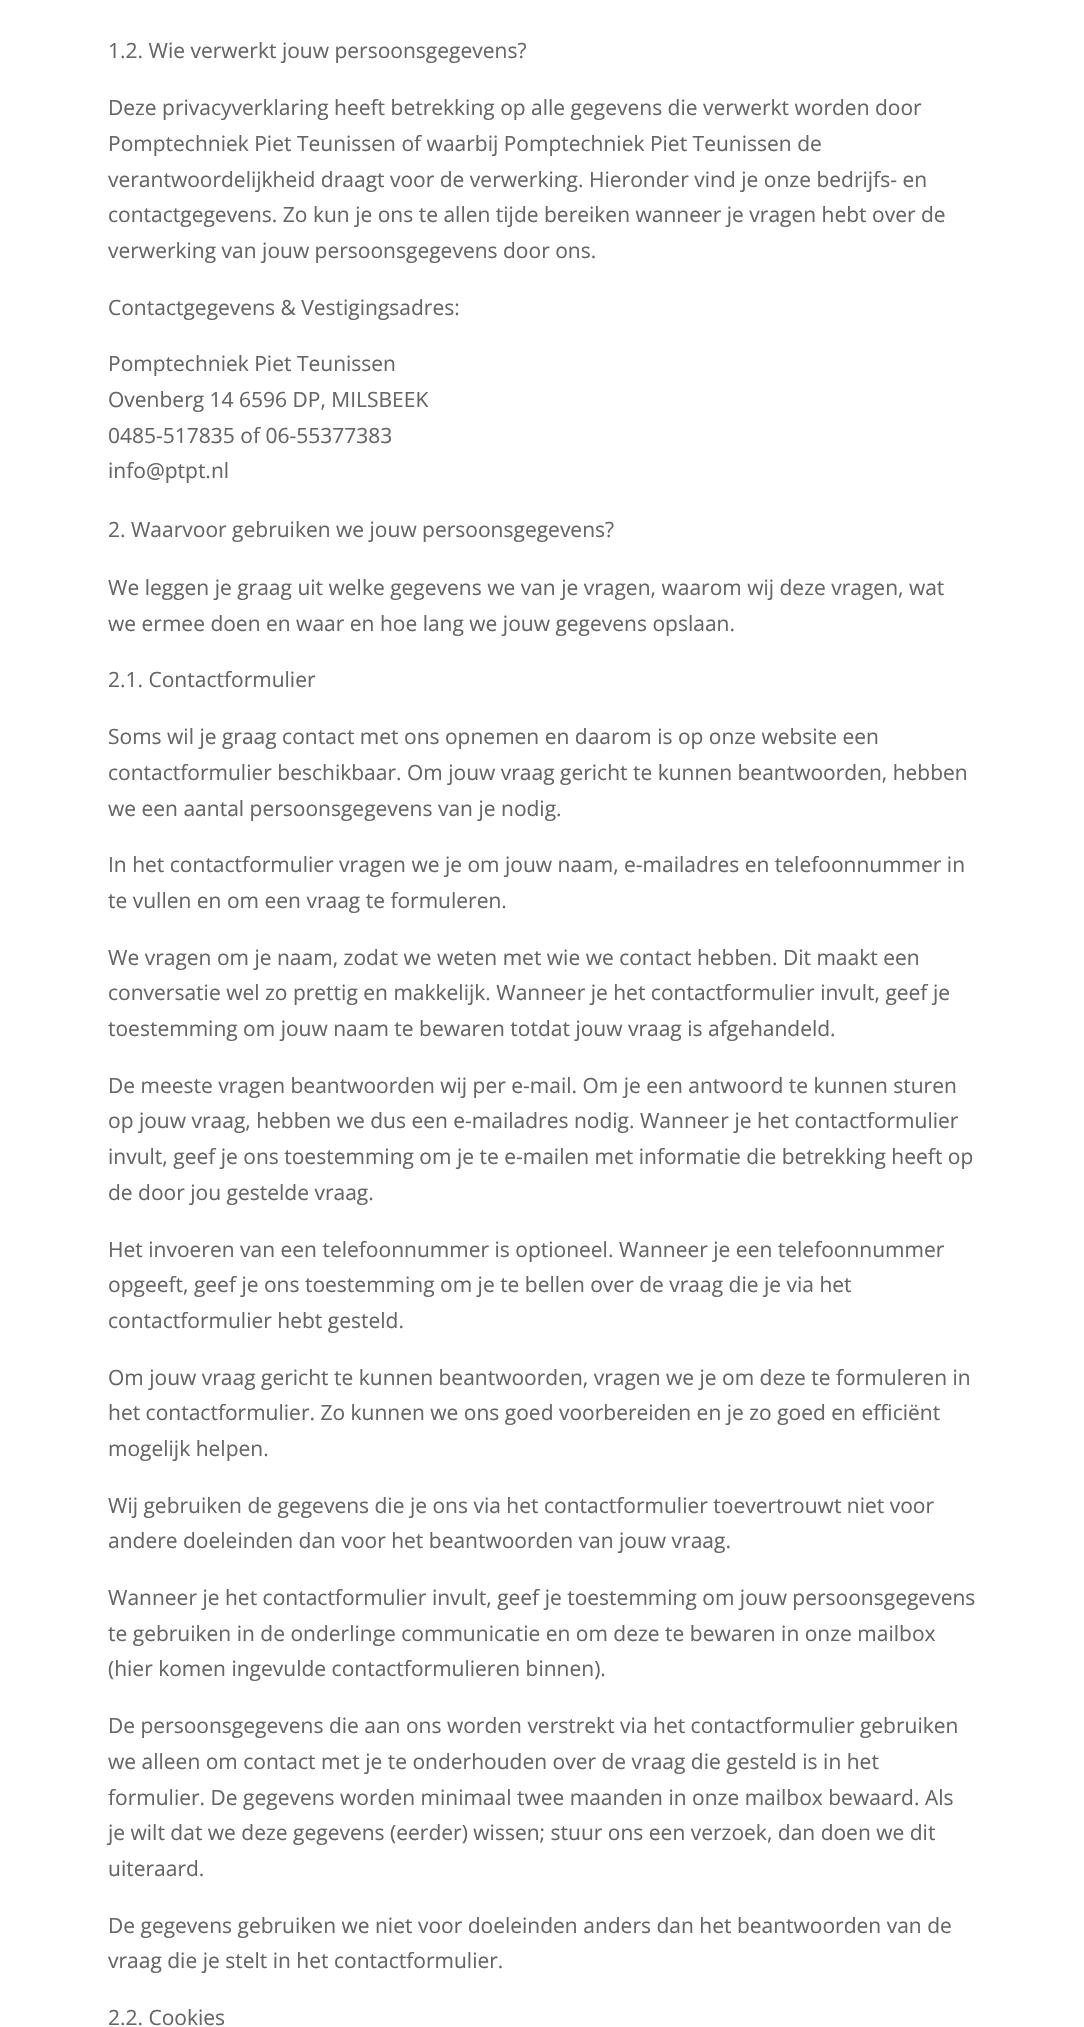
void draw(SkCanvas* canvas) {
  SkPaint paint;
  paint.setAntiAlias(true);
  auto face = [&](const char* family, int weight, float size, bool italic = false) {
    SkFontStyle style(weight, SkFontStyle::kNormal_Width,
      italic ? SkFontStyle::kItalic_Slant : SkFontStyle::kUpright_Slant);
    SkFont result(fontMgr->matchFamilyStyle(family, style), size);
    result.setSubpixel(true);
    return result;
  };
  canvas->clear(0xffffffff);
  auto f0 = face("Open Sans", 400, 21);
  paint.setColor(0xff666666);
  {
    const struct { const char* s; float x, y; } items[] = {
      {"1.2. Wie verwerkt jouw persoonsgegevens?", 108, 58},
      {"Deze privacyverklaring heeft betrekking op alle gegevens die verwerkt worden door", 108, 115},
      {"Pomptechniek Piet Teunissen of waarbij Pomptechniek Piet Teunissen de", 108, 151},
      {"verantwoordelijkheid draagt voor de verwerking. Hieronder vind je onze bedrijfs- en", 108, 187},
      {"contactgegevens. Zo kun je ons te allen tijde bereiken wanneer je vragen hebt over de", 108, 222},
      {"verwerking van jouw persoonsgegevens door ons.", 108, 258},
      {"Contactgegevens & Vestigingsadres:", 108, 315},
      {"Pomptechniek Piet Teunissen", 108, 371},
      {"Ovenberg 14 6596 DP, MILSBEEK", 108, 407},
      {"0485-517835 of 06-55377383", 108, 443},
      {"info@ptpt.nl", 108, 478},
      {"2. Waarvoor gebruiken we jouw persoonsgegevens?", 108, 537},
      {"We leggen je graag uit welke gegevens we van je vragen, waarom wij deze vragen, wat", 108, 595},
      {"we ermee doen en waar en hoe lang we jouw gegevens opslaan.", 108, 631},
      {"2.1. Contactformulier", 108, 687},
      {"Soms wil je graag contact met ons opnemen en daarom is op onze website een", 108, 744},
      {"contactformulier beschikbaar. Om jouw vraag gericht te kunnen beantwoorden, hebben", 108, 780},
      {"we een aantal persoonsgegevens van je nodig.", 108, 816},
      {"In het contactformulier vragen we je om jouw naam, e-mailadres en telefoonnummer in", 108, 872},
      {"te vullen en om een vraag te formuleren.", 108, 908},
      {"We vragen om je naam, zodat we weten met wie we contact hebben. Dit maakt een", 108, 965},
      {"conversatie wel zo prettig en makkelijk. Wanneer je het contactformulier invult, geef je", 108, 1000},
      {"toestemming om jouw naam te bewaren totdat jouw vraag is afgehandeld.", 108, 1036},
      {"De meeste vragen beantwoorden wij per e-mail. Om je een antwoord te kunnen sturen", 108, 1093},
      {"op jouw vraag, hebben we dus een e-mailadres nodig. Wanneer je het contactformulier", 108, 1128},
      {"invult, geef je ons toestemming om je te e-mailen met informatie die betrekking heeft op", 108, 1164},
      {"de door jou gestelde vraag.", 108, 1200},
      {"Het invoeren van een telefoonnummer is optioneel. Wanneer je een telefoonnummer", 108, 1257},
      {"opgeeft, geef je ons toestemming om je te bellen over de vraag die je via het", 108, 1292},
      {"contactformulier hebt gesteld.", 108, 1328},
      {"Om jouw vraag gericht te kunnen beantwoorden, vragen we je om deze te formuleren in", 108, 1385},
      {"het contactformulier. Zo kunnen we ons goed voorbereiden en je zo goed en efficiënt", 108, 1420},
      {"mogelijk helpen.", 108, 1456},
      {"Wij gebruiken de gegevens die je ons via het contactformulier toevertrouwt niet voor", 108, 1513},
      {"andere doeleinden dan voor het beantwoorden van jouw vraag.", 108, 1548},
      {"Wanneer je het contactformulier invult, geef je toestemming om jouw persoonsgegevens", 108, 1605},
      {"te gebruiken in de onderlinge communicatie en om deze te bewaren in onze mailbox", 108, 1641},
      {"(hier komen ingevulde contactformulieren binnen).", 108, 1676},
      {"De persoonsgegevens die aan ons worden verstrekt via het contactformulier gebruiken", 108, 1733},
      {"we alleen om contact met je te onderhouden over de vraag die gesteld is in het", 108, 1769},
      {"formulier. De gegevens worden minimaal twee maanden in onze mailbox bewaard. Als", 108, 1805},
      {"je wilt dat we deze gegevens (eerder) wissen; stuur ons een verzoek, dan doen we dit", 108, 1840},
      {"uiteraard.", 108, 1876},
      {"De gegevens gebruiken we niet voor doeleinden anders dan het beantwoorden van de", 108, 1933},
      {"vraag die je stelt in het contactformulier.", 108, 1968},
      {"2.2. Cookies", 108, 2025},
    };
    for (auto [s, x, y] : items) {
      canvas->drawString(s, x, y, f0, paint);
    }
  }
}
